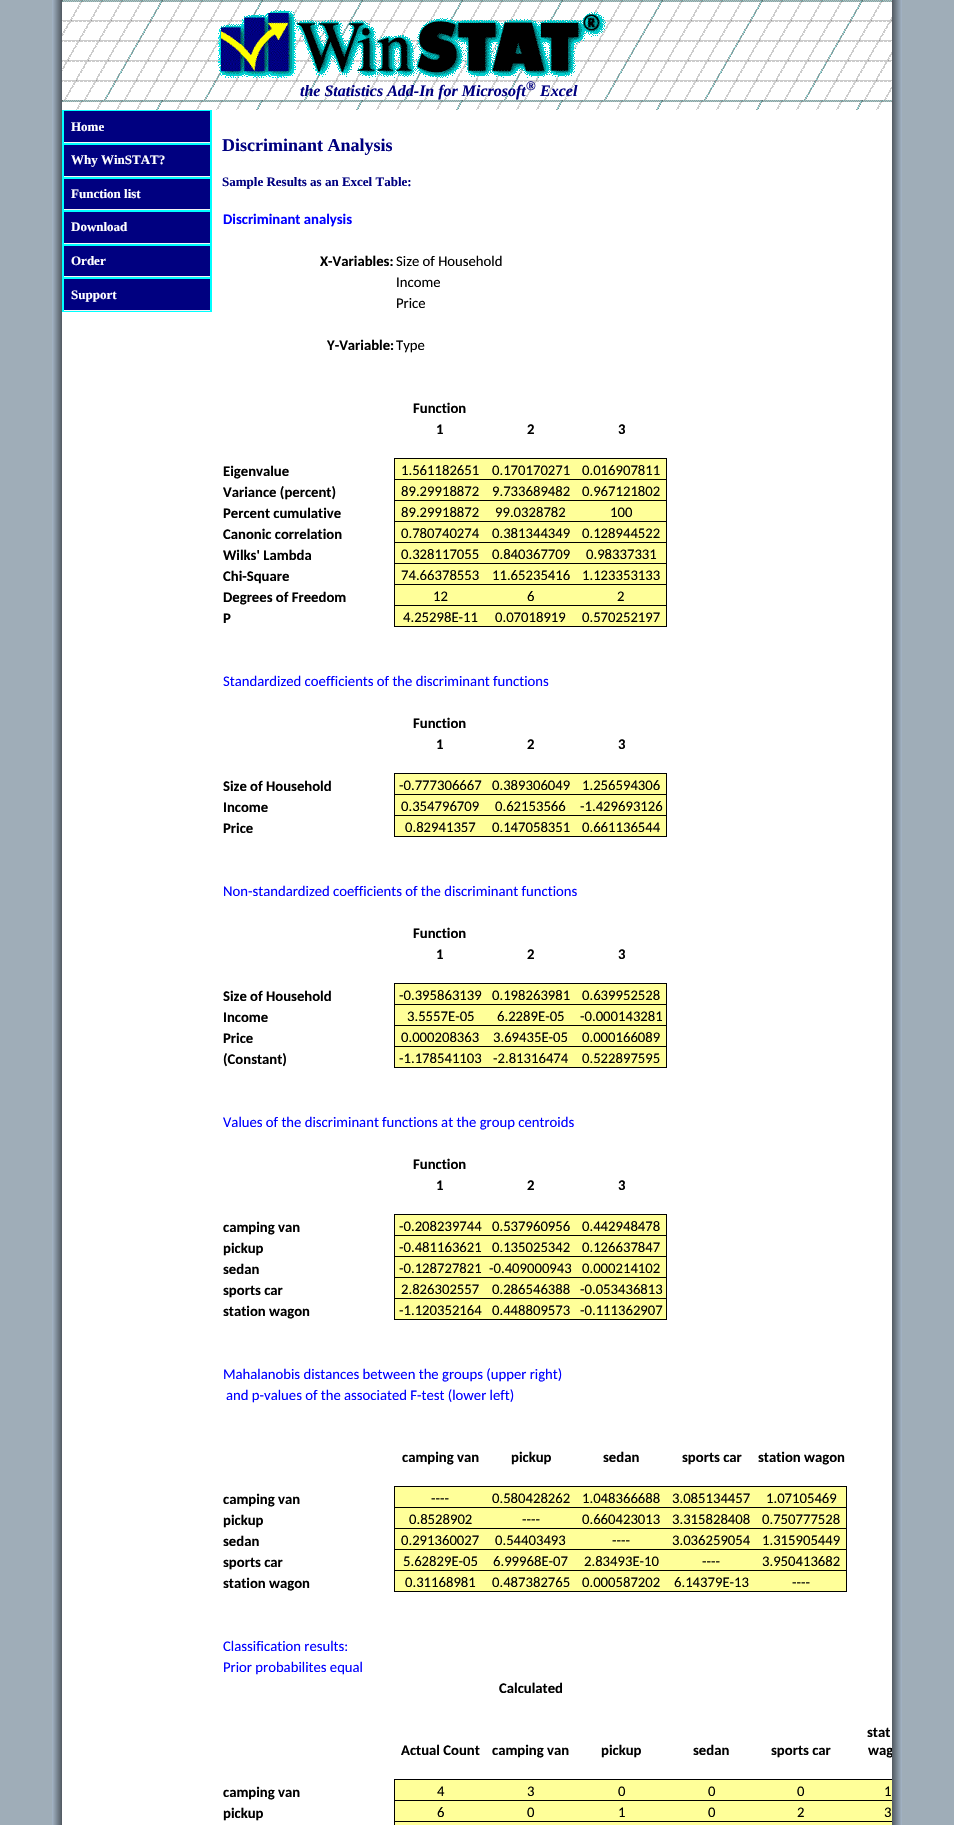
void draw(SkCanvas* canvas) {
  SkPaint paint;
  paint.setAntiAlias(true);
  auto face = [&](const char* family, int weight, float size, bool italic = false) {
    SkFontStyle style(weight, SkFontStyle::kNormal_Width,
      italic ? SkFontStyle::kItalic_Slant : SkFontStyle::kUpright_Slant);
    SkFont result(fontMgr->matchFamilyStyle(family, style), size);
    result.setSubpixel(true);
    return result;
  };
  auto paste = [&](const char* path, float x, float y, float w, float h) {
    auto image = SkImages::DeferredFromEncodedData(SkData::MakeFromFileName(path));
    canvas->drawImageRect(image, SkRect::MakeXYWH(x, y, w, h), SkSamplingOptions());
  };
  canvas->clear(0xff9fadb8);
  paste("img/1.png", 52, 0, 850, 1825);
  paste("img/2.png", 62, 0, 830, 110);
  paste("img/3.png", 218, 10, 388, 68);
  {
    const struct { float x, y, w, h; SkColor color; } items[] = {
      {64, 111, 146, 199, 0xff000080},
      {62, 110, 150, 1, 0xff00ffff},
      {210, 110, 2, 34, 0xff00ffff},
      {62, 143, 150, 2, 0xff00ffff},
      {62, 110, 2, 34, 0xff00ffff},
      {64, 142, 146, 1, 0xfff5f5f5},
      {210, 144, 2, 34, 0xff00ffff},
      {62, 177, 150, 2, 0xff00ffff},
      {62, 144, 2, 34, 0xff00ffff},
      {64, 176, 146, 1, 0xfff5f5f5},
      {210, 178, 2, 33, 0xff00ffff},
      {62, 210, 150, 2, 0xff00ffff},
      {62, 178, 2, 33, 0xff00ffff},
      {64, 209, 146, 1, 0xfff5f5f5},
      {210, 211, 2, 34, 0xff00ffff},
      {62, 244, 150, 2, 0xff00ffff},
      {62, 211, 2, 34, 0xff00ffff},
      {64, 243, 146, 1, 0xfff5f5f5},
      {210, 245, 2, 33, 0xff00ffff},
      {62, 277, 150, 2, 0xff00ffff},
      {62, 245, 2, 33, 0xff00ffff},
      {64, 276, 146, 1, 0xfff5f5f5},
      {210, 278, 2, 34, 0xff00ffff},
      {62, 311, 150, 1, 0xff00ffff},
      {62, 278, 2, 34, 0xff00ffff},
      {64, 310, 146, 1, 0xfff5f5f5},
      {395, 459, 271, 20, 0xffffff99},
      {394, 458, 273, 1, 0xff000000},
      {394, 479, 273, 1, 0xff000000},
      {394, 500, 273, 1, 0xff000000},
      {394, 521, 273, 1, 0xff000000},
      {394, 542, 273, 1, 0xff000000},
      {394, 563, 273, 1, 0xff000000},
      {394, 584, 273, 1, 0xff000000},
      {666, 605, 1, 22, 0xff000000},
      {666, 584, 1, 22, 0xff000000},
      {394, 626, 273, 1, 0xff000000},
      {394, 605, 1, 22, 0xff000000},
      {394, 605, 273, 1, 0xff000000},
      {394, 584, 1, 22, 0xff000000},
      {394, 563, 1, 22, 0xff000000},
      {394, 542, 1, 22, 0xff000000},
      {394, 521, 1, 22, 0xff000000},
      {394, 500, 1, 22, 0xff000000},
      {394, 479, 1, 22, 0xff000000},
      {394, 458, 1, 22, 0xff000000},
      {666, 563, 1, 22, 0xff000000},
      {666, 542, 1, 22, 0xff000000},
      {666, 521, 1, 22, 0xff000000},
      {666, 500, 1, 22, 0xff000000},
      {666, 479, 1, 22, 0xff000000},
      {666, 458, 1, 22, 0xff000000},
      {395, 480, 271, 20, 0xffffff99},
      {395, 501, 271, 20, 0xffffff99},
      {395, 522, 271, 20, 0xffffff99},
      {395, 543, 271, 20, 0xffffff99},
      {395, 564, 271, 20, 0xffffff99},
      {395, 585, 271, 20, 0xffffff99},
      {395, 606, 271, 20, 0xffffff99},
      {395, 774, 271, 20, 0xffffff99},
      {394, 773, 273, 1, 0xff000000},
      {666, 794, 1, 43, 0xff000000},
      {666, 773, 1, 22, 0xff000000},
      {394, 836, 273, 1, 0xff000000},
      {394, 815, 1, 22, 0xff000000},
      {394, 815, 273, 1, 0xff000000},
      {394, 794, 1, 22, 0xff000000},
      {394, 794, 273, 1, 0xff000000},
      {394, 773, 1, 22, 0xff000000},
      {395, 795, 271, 20, 0xffffff99},
      {395, 816, 271, 20, 0xffffff99},
      {395, 984, 271, 20, 0xffffff99},
      {394, 983, 273, 1, 0xff000000},
      {666, 1004, 1, 64, 0xff000000},
      {666, 983, 1, 22, 0xff000000},
      {394, 1067, 273, 1, 0xff000000},
      {394, 1046, 1, 22, 0xff000000},
      {394, 1046, 273, 1, 0xff000000},
      {394, 1025, 1, 22, 0xff000000},
      {394, 1025, 273, 1, 0xff000000},
      {394, 1004, 1, 22, 0xff000000},
      {394, 1004, 273, 1, 0xff000000},
      {394, 983, 1, 22, 0xff000000},
      {395, 1005, 271, 20, 0xffffff99},
      {395, 1026, 271, 20, 0xffffff99},
      {395, 1047, 271, 20, 0xffffff99},
      {395, 1215, 271, 20, 0xffffff99},
      {394, 1214, 273, 1, 0xff000000},
      {666, 1235, 1, 85, 0xff000000},
      {666, 1214, 1, 22, 0xff000000},
      {394, 1319, 273, 1, 0xff000000},
      {394, 1298, 1, 22, 0xff000000},
      {394, 1298, 273, 1, 0xff000000},
      {394, 1277, 1, 22, 0xff000000},
      {394, 1277, 273, 1, 0xff000000},
      {394, 1256, 1, 22, 0xff000000},
      {394, 1256, 273, 1, 0xff000000},
      {394, 1235, 1, 22, 0xff000000},
      {394, 1235, 273, 1, 0xff000000},
      {394, 1214, 1, 22, 0xff000000},
      {395, 1236, 271, 20, 0xffffff99},
      {395, 1257, 271, 20, 0xffffff99},
      {395, 1278, 271, 20, 0xffffff99},
      {395, 1299, 271, 20, 0xffffff99},
      {395, 1487, 451, 20, 0xffffff99},
      {394, 1486, 453, 1, 0xff000000},
      {846, 1507, 1, 85, 0xff000000},
      {846, 1486, 1, 22, 0xff000000},
      {394, 1591, 453, 1, 0xff000000},
      {394, 1570, 1, 22, 0xff000000},
      {394, 1570, 453, 1, 0xff000000},
      {394, 1549, 1, 22, 0xff000000},
      {394, 1549, 453, 1, 0xff000000},
      {394, 1528, 1, 22, 0xff000000},
      {394, 1528, 453, 1, 0xff000000},
      {394, 1507, 1, 22, 0xff000000},
      {394, 1507, 453, 1, 0xff000000},
      {394, 1486, 1, 22, 0xff000000},
      {395, 1508, 451, 20, 0xffffff99},
      {395, 1529, 451, 20, 0xffffff99},
      {395, 1550, 451, 20, 0xffffff99},
      {395, 1571, 451, 20, 0xffffff99},
      {395, 1780, 497, 20, 0xffffff99},
      {394, 1779, 498, 1, 0xff000000},
      {394, 1821, 1, 4, 0xff000000},
      {394, 1821, 498, 1, 0xff000000},
      {394, 1800, 1, 22, 0xff000000},
      {394, 1800, 498, 1, 0xff000000},
      {394, 1779, 1, 22, 0xff000000},
      {395, 1801, 497, 20, 0xffffff99},
      {395, 1822, 497, 3, 0xffffff99},
    };
    for (auto [x, y, w, h, color] : items) {
      paint.setColor(color);
      canvas->drawRect(SkRect::MakeXYWH(x, y, w, h), paint);
    }
  }
  auto f0 = face("Liberation Serif", 700, 16, true);
  paint.setColor(0xff000080);
  canvas->drawString("the Statistics Add-In for Microsoft", 300, 96, f0, paint);
  auto f1 = face("Liberation Serif", 700, 13, true);
  canvas->drawString("®", 526, 90, f1, paint);
  canvas->drawString("Excel", 540, 96, f0, paint);
  auto f2 = face("Liberation Serif", 700, 13);
  paint.setColor(0xffffffff);
  {
    const struct { const char* s; float x, y; } items[] = {
      {"Home", 71, 131},
      {"Why WinSTAT?", 71, 164},
      {"Function list", 71, 198},
      {"Download", 71, 231},
      {"Order", 71, 265},
      {"Support", 71, 299},
    };
    for (auto [s, x, y] : items) {
      canvas->drawString(s, x, y, f2, paint);
    }
  }
  auto f3 = face("Liberation Serif", 700, 18);
  paint.setColor(0xff000080);
  canvas->drawString("Discriminant Analysis", 222, 151, f3, paint);
  canvas->drawString("Sample Results as an Excel Table:", 222, 186, f2, paint);
  auto f4 = face("Carlito", 700, 14.7f);
  paint.setColor(0xff0000ff);
  canvas->drawString("Discriminant analysis", 223, 224, f4, paint);
  paint.setColor(0xff000000);
  canvas->drawString("X-Variables:", 320, 266, f4, paint);
  auto f5 = face("Carlito", 400, 14.7f);
  {
    const struct { const char* s; float x, y; } items[] = {
      {"Size of Household", 396, 266},
      {"Income", 396, 287},
      {"Price", 396, 308},
    };
    for (auto [s, x, y] : items) {
      canvas->drawString(s, x, y, f5, paint);
    }
  }
  canvas->drawString("Y-Variable:", 327, 350, f4, paint);
  canvas->drawString("Type", 396, 350, f5, paint);
  {
    const struct { const char* s; float x, y; } items[] = {
      {"Function", 413, 413},
      {"1", 436, 434},
      {"2", 527, 434},
      {"3", 618, 434},
      {"Eigenvalue", 223, 476},
    };
    for (auto [s, x, y] : items) {
      canvas->drawString(s, x, y, f4, paint);
    }
  }
  {
    const struct { const char* s; float x, y; } items[] = {
      {"1.561182651", 401, 475},
      {"0.170170271", 492, 475},
      {"0.016907811", 582, 475},
    };
    for (auto [s, x, y] : items) {
      canvas->drawString(s, x, y, f5, paint);
    }
  }
  canvas->drawString("Variance (percent)", 223, 497, f4, paint);
  {
    const struct { const char* s; float x, y; } items[] = {
      {"89.29918872", 401, 496},
      {"9.733689482", 492, 496},
      {"0.967121802", 582, 496},
    };
    for (auto [s, x, y] : items) {
      canvas->drawString(s, x, y, f5, paint);
    }
  }
  canvas->drawString("Percent cumulative", 223, 518, f4, paint);
  {
    const struct { const char* s; float x, y; } items[] = {
      {"89.29918872", 401, 517},
      {"99.0328782", 495, 517},
      {"100", 610, 517},
    };
    for (auto [s, x, y] : items) {
      canvas->drawString(s, x, y, f5, paint);
    }
  }
  canvas->drawString("Canonic correlation", 223, 539, f4, paint);
  {
    const struct { const char* s; float x, y; } items[] = {
      {"0.780740274", 401, 538},
      {"0.381344349", 492, 538},
      {"0.128944522", 582, 538},
    };
    for (auto [s, x, y] : items) {
      canvas->drawString(s, x, y, f5, paint);
    }
  }
  canvas->drawString("Wilks' Lambda", 223, 560, f4, paint);
  {
    const struct { const char* s; float x, y; } items[] = {
      {"0.328117055", 401, 559},
      {"0.840367709", 492, 559},
      {"0.98337331", 586, 559},
    };
    for (auto [s, x, y] : items) {
      canvas->drawString(s, x, y, f5, paint);
    }
  }
  canvas->drawString("Chi-Square", 223, 581, f4, paint);
  {
    const struct { const char* s; float x, y; } items[] = {
      {"74.66378553", 401, 580},
      {"11.65235416", 492, 580},
      {"1.123353133", 582, 580},
    };
    for (auto [s, x, y] : items) {
      canvas->drawString(s, x, y, f5, paint);
    }
  }
  canvas->drawString("Degrees of Freedom", 223, 602, f4, paint);
  {
    const struct { const char* s; float x, y; } items[] = {
      {"12", 433, 601},
      {"6", 527, 601},
      {"2", 617, 601},
    };
    for (auto [s, x, y] : items) {
      canvas->drawString(s, x, y, f5, paint);
    }
  }
  canvas->drawString("P", 223, 623, f4, paint);
  {
    const struct { const char* s; float x, y; } items[] = {
      {"4.25298E-11", 403, 622},
      {"0.07018919", 495, 622},
      {"0.570252197", 582, 622},
    };
    for (auto [s, x, y] : items) {
      canvas->drawString(s, x, y, f5, paint);
    }
  }
  paint.setColor(0xff0000ff);
  canvas->drawString("Standardized coefficients of the discriminant functions", 223, 686, f5, paint);
  paint.setColor(0xff000000);
  {
    const struct { const char* s; float x, y; } items[] = {
      {"Function", 413, 728},
      {"1", 436, 749},
      {"2", 527, 749},
      {"3", 618, 749},
      {"Size of Household", 223, 791},
    };
    for (auto [s, x, y] : items) {
      canvas->drawString(s, x, y, f4, paint);
    }
  }
  {
    const struct { const char* s; float x, y; } items[] = {
      {"-0.777306667", 399, 790},
      {"0.389306049", 492, 790},
      {"1.256594306", 582, 790},
    };
    for (auto [s, x, y] : items) {
      canvas->drawString(s, x, y, f5, paint);
    }
  }
  canvas->drawString("Income", 223, 812, f4, paint);
  {
    const struct { const char* s; float x, y; } items[] = {
      {"0.354796709", 401, 811},
      {"0.62153566", 495, 811},
      {"-1.429693126", 580, 811},
    };
    for (auto [s, x, y] : items) {
      canvas->drawString(s, x, y, f5, paint);
    }
  }
  canvas->drawString("Price", 223, 833, f4, paint);
  {
    const struct { const char* s; float x, y; } items[] = {
      {"0.82941357", 405, 832},
      {"0.147058351", 492, 832},
      {"0.661136544", 582, 832},
    };
    for (auto [s, x, y] : items) {
      canvas->drawString(s, x, y, f5, paint);
    }
  }
  paint.setColor(0xff0000ff);
  canvas->drawString("Non-standardized coefficients of the discriminant functions", 223, 896, f5, paint);
  paint.setColor(0xff000000);
  {
    const struct { const char* s; float x, y; } items[] = {
      {"Function", 413, 938},
      {"1", 436, 959},
      {"2", 527, 959},
      {"3", 618, 959},
      {"Size of Household", 223, 1001},
    };
    for (auto [s, x, y] : items) {
      canvas->drawString(s, x, y, f4, paint);
    }
  }
  {
    const struct { const char* s; float x, y; } items[] = {
      {"-0.395863139", 399, 1000},
      {"0.198263981", 492, 1000},
      {"0.639952528", 582, 1000},
    };
    for (auto [s, x, y] : items) {
      canvas->drawString(s, x, y, f5, paint);
    }
  }
  canvas->drawString("Income", 223, 1022, f4, paint);
  {
    const struct { const char* s; float x, y; } items[] = {
      {"3.5557E-05", 407, 1021},
      {"6.2289E-05", 497, 1021},
      {"-0.000143281", 580, 1021},
    };
    for (auto [s, x, y] : items) {
      canvas->drawString(s, x, y, f5, paint);
    }
  }
  canvas->drawString("Price", 223, 1043, f4, paint);
  {
    const struct { const char* s; float x, y; } items[] = {
      {"0.000208363", 401, 1042},
      {"3.69435E-05", 493, 1042},
      {"0.000166089", 582, 1042},
    };
    for (auto [s, x, y] : items) {
      canvas->drawString(s, x, y, f5, paint);
    }
  }
  canvas->drawString("(Constant)", 223, 1064, f4, paint);
  {
    const struct { const char* s; float x, y; } items[] = {
      {"-1.178541103", 399, 1063},
      {"-2.81316474", 493, 1063},
      {"0.522897595", 582, 1063},
    };
    for (auto [s, x, y] : items) {
      canvas->drawString(s, x, y, f5, paint);
    }
  }
  paint.setColor(0xff0000ff);
  canvas->drawString("Values of the discriminant functions at the group centroids", 223, 1127, f5, paint);
  paint.setColor(0xff000000);
  {
    const struct { const char* s; float x, y; } items[] = {
      {"Function", 413, 1169},
      {"1", 436, 1190},
      {"2", 527, 1190},
      {"3", 618, 1190},
      {"camping van", 223, 1232},
    };
    for (auto [s, x, y] : items) {
      canvas->drawString(s, x, y, f4, paint);
    }
  }
  {
    const struct { const char* s; float x, y; } items[] = {
      {"-0.208239744", 399, 1231},
      {"0.537960956", 492, 1231},
      {"0.442948478", 582, 1231},
    };
    for (auto [s, x, y] : items) {
      canvas->drawString(s, x, y, f5, paint);
    }
  }
  canvas->drawString("pickup", 223, 1253, f4, paint);
  {
    const struct { const char* s; float x, y; } items[] = {
      {"-0.481163621", 399, 1252},
      {"0.135025342", 492, 1252},
      {"0.126637847", 582, 1252},
    };
    for (auto [s, x, y] : items) {
      canvas->drawString(s, x, y, f5, paint);
    }
  }
  canvas->drawString("sedan", 223, 1274, f4, paint);
  {
    const struct { const char* s; float x, y; } items[] = {
      {"-0.128727821", 399, 1273},
      {"-0.409000943", 489, 1273},
      {"0.000214102", 582, 1273},
    };
    for (auto [s, x, y] : items) {
      canvas->drawString(s, x, y, f5, paint);
    }
  }
  canvas->drawString("sports car", 223, 1295, f4, paint);
  {
    const struct { const char* s; float x, y; } items[] = {
      {"2.826302557", 401, 1294},
      {"0.286546388", 492, 1294},
      {"-0.053436813", 580, 1294},
    };
    for (auto [s, x, y] : items) {
      canvas->drawString(s, x, y, f5, paint);
    }
  }
  canvas->drawString("station wagon", 223, 1316, f4, paint);
  {
    const struct { const char* s; float x, y; } items[] = {
      {"-1.120352164", 399, 1315},
      {"0.448809573", 492, 1315},
      {"-0.111362907", 580, 1315},
    };
    for (auto [s, x, y] : items) {
      canvas->drawString(s, x, y, f5, paint);
    }
  }
  paint.setColor(0xff0000ff);
  canvas->drawString("Mahalanobis distances between the groups (upper right)", 223, 1379, f5, paint);
  canvas->drawString("and p-values of the associated F-test (lower left)", 226, 1400, f5, paint);
  paint.setColor(0xff000000);
  {
    const struct { const char* s; float x, y; } items[] = {
      {"camping van", 402, 1462},
      {"pickup", 511, 1462},
      {"sedan", 603, 1462},
      {"sports car", 682, 1462},
      {"station wagon", 758, 1462},
      {"camping van", 223, 1504},
    };
    for (auto [s, x, y] : items) {
      canvas->drawString(s, x, y, f4, paint);
    }
  }
  {
    const struct { const char* s; float x, y; } items[] = {
      {"----", 431, 1503},
      {"0.580428262", 492, 1503},
      {"1.048366688", 582, 1503},
      {"3.085134457", 672, 1503},
      {"1.07105469", 766, 1503},
    };
    for (auto [s, x, y] : items) {
      canvas->drawString(s, x, y, f5, paint);
    }
  }
  canvas->drawString("pickup", 223, 1525, f4, paint);
  {
    const struct { const char* s; float x, y; } items[] = {
      {"0.8528902", 409, 1524},
      {"----", 522, 1524},
      {"0.660423013", 582, 1524},
      {"3.315828408", 672, 1524},
      {"0.750777528", 762, 1524},
    };
    for (auto [s, x, y] : items) {
      canvas->drawString(s, x, y, f5, paint);
    }
  }
  canvas->drawString("sedan", 223, 1546, f4, paint);
  {
    const struct { const char* s; float x, y; } items[] = {
      {"0.291360027", 401, 1545},
      {"0.54403493", 495, 1545},
      {"----", 612, 1545},
      {"3.036259054", 672, 1545},
      {"1.315905449", 762, 1545},
    };
    for (auto [s, x, y] : items) {
      canvas->drawString(s, x, y, f5, paint);
    }
  }
  canvas->drawString("sports car", 223, 1567, f4, paint);
  {
    const struct { const char* s; float x, y; } items[] = {
      {"5.62829E-05", 403, 1566},
      {"6.99968E-07", 493, 1566},
      {"2.83493E-10", 584, 1566},
      {"----", 702, 1566},
      {"3.950413682", 762, 1566},
    };
    for (auto [s, x, y] : items) {
      canvas->drawString(s, x, y, f5, paint);
    }
  }
  canvas->drawString("station wagon", 223, 1588, f4, paint);
  {
    const struct { const char* s; float x, y; } items[] = {
      {"0.31168981", 405, 1587},
      {"0.487382765", 492, 1587},
      {"0.000587202", 582, 1587},
      {"6.14379E-13", 674, 1587},
      {"----", 792, 1587},
    };
    for (auto [s, x, y] : items) {
      canvas->drawString(s, x, y, f5, paint);
    }
  }
  paint.setColor(0xff0000ff);
  canvas->drawString("Classification results:", 223, 1651, f5, paint);
  canvas->drawString("Prior probabilites equal", 223, 1672, f5, paint);
  paint.setColor(0xff000000);
  {
    const struct { const char* s; float x, y; } items[] = {
      {"Calculated", 499, 1693},
      {"Actual Count", 401, 1755},
      {"camping van", 492, 1755},
      {"pickup", 601, 1755},
      {"sedan", 693, 1755},
      {"sports car", 771, 1755},
      {"stat", 867, 1737},
    };
    for (auto [s, x, y] : items) {
      canvas->drawString(s, x, y, f4, paint);
    }
  }
  canvas->save();
  canvas->clipRect(SkRect::MakeXYWH(212, 110, 680, 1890));
  canvas->drawString("wag", 868, 1755, f4, paint);
  canvas->restore();
  canvas->drawString("camping van", 223, 1797, f4, paint);
  {
    const struct { const char* s; float x, y; } items[] = {
      {"4", 437, 1796},
      {"3", 527, 1796},
      {"0", 618, 1796},
      {"0", 708, 1796},
      {"0", 797, 1796},
      {"1", 884, 1796},
    };
    for (auto [s, x, y] : items) {
      canvas->drawString(s, x, y, f5, paint);
    }
  }
  canvas->drawString("pickup", 223, 1818, f4, paint);
  {
    const struct { const char* s; float x, y; } items[] = {
      {"6", 437, 1817},
      {"0", 527, 1817},
      {"1", 618, 1817},
      {"0", 708, 1817},
      {"2", 797, 1817},
      {"3", 884, 1817},
    };
    for (auto [s, x, y] : items) {
      canvas->drawString(s, x, y, f5, paint);
    }
  }
}
